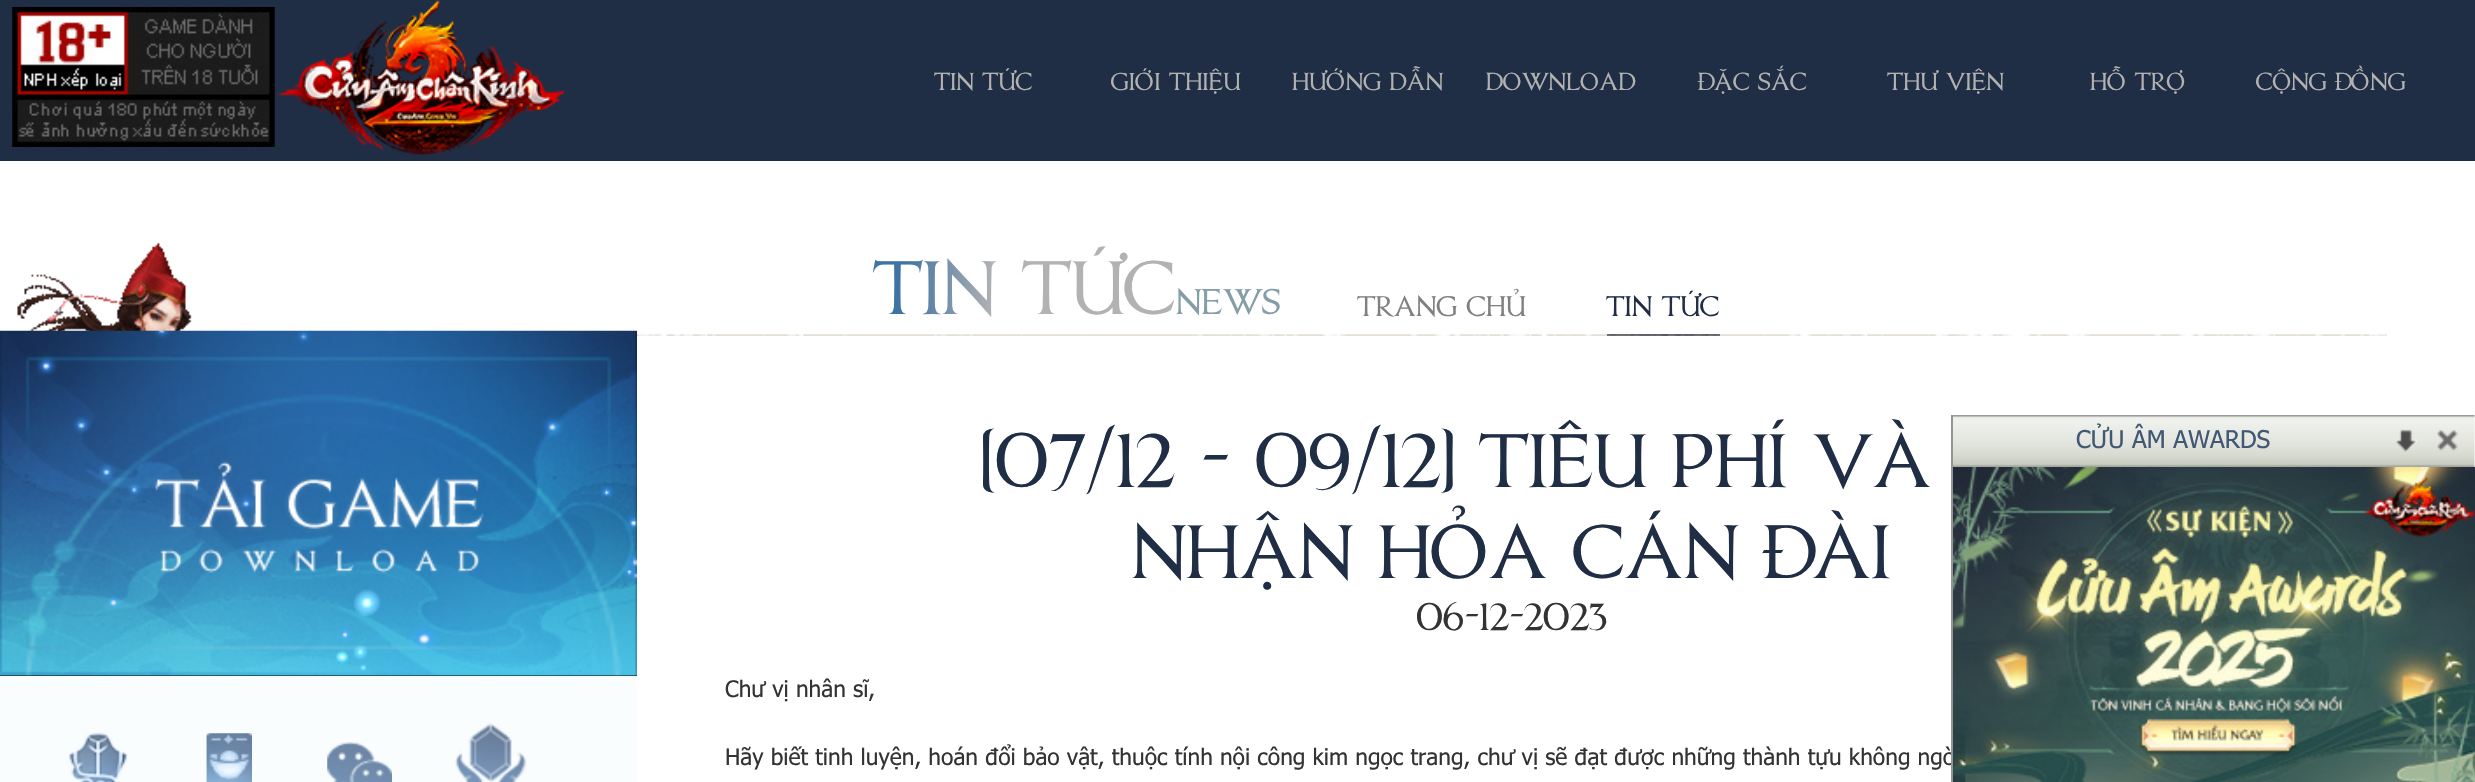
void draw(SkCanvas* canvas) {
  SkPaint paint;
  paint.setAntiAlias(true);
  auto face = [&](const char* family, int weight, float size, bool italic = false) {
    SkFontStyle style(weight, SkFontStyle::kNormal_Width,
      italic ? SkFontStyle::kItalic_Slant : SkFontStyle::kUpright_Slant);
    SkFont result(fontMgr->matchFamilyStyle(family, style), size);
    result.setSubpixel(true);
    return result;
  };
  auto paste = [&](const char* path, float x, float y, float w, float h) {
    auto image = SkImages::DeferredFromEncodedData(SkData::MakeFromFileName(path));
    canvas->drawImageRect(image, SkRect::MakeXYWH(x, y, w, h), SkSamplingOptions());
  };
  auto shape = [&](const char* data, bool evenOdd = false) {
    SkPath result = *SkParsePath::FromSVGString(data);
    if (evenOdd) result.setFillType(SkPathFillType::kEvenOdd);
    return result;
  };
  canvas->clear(0xffffffff);
  paint.setColor(0xff1f2e45);
  canvas->drawRect(SkRect::MakeXYWH(0, 0, 2475, 161), paint);
  paste("img/1.png", 12, 7, 263, 140);
  paste("img/2.png", 276, 0, 289, 156);
  paste("img/3.png", 17, 242, 175, 89);
  paint.setColor(0xfff9fdfe);
  canvas->drawRect(SkRect::MakeXYWH(0, 676, 637, 106), paint);
  paint.setColor(0xff000000);
  canvas->drawRect(SkRect::MakeXYWH(0, 331, 637, 345), paint);
  paste("img/4.png", 0, 330, 637, 346);
  paste("img/5.png", 68, 732, 60, 50);
  paste("img/6.png", 206, 733, 46, 49);
  paste("img/7.png", 327, 742, 65, 40);
  paste("img/8.png", 455, 722, 72, 60);
  paint.setColor(0xff515968);
  canvas->drawRect(SkRect::MakeXYWH(1607, 334, 113, 2), paint);
  paste("img/9.png", 637, 334, 1750, 2);
  paint.setStroke(true);
  paint.setStrokeWidth(1.8f);
  paint.setColor(0xffa6a6a6);
  canvas->drawPath(shape("M2264.5 425H2124.5C2105.5 425 2090.5 440 2090.5 459C2090.5 478 2105.5 493 2124.5 493H2264.5C2283.5 493 2298.5 478 2298.5 459C2298.5 440 2283.5 425 2264.5 425Z"), paint);
  paste("img/10.png", 2145, 466, 10, 1);
  paste("img/11.png", 1953, 415, 522, 52);
  paste("img/12.png", 2395, 429, 22, 23);
  paste("img/13.png", 2437, 429, 21, 22);
  auto f0 = face("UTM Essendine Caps", 700, 22.75f);
  paint.setStroke(false);
  paint.setColor(0xffb2b2b2);
  {
    const struct { const char* s; float x, y; } items[] = {
      {"TIN TỨC", 934, 90},
      {"GIỚI THIỆU", 1111, 90},
      {"HƯỚNG DẪN", 1292, 90},
      {"DOWNLOAD", 1486, 90},
      {"ĐẶC SẮC", 1698, 90},
      {"THƯ VIỆN", 1887, 90},
      {"HỖ TRỢ", 2090, 90},
      {"CỘNG ĐỒNG", 2256, 90},
    };
    for (auto [s, x, y] : items) {
      canvas->drawString(s, x, y, f0, paint);
    }
  }
  auto f1 = face("UTM Essendine Caps", 700, 70);
  {
    const SkColor colors[] = {0xff3f73a3, 0xffb2b2b2};
    const float stops[] = {0.1f, 0.4f};
    const SkPoint ends[] = {{873, 282}, {1176, 282}};
    paint.setShader(SkGradientShader::MakeLinear(ends, colors, stops, 2, SkTileMode::kClamp));
    paint.setAlpha(255);
  }
  canvas->drawString("TIN TỨC", 873, 314, f1, paint);
  auto f2 = face("UTM Essendine Caps", 700, 33);
  paint.setShader(nullptr);
  paint.setColor(0xff839ea6);
  canvas->drawString("NEWS", 1176, 314, f2, paint);
  auto f3 = face("UTM Essendine Caps", 700, 26.25f);
  paint.setColor(0xff808080);
  canvas->drawString("TRANG CHỦ", 1357, 316, f3, paint);
  paint.setColor(0xff1f2e45);
  canvas->drawString("TIN TỨC", 1606, 316, f3, paint);
  canvas->drawString("[07/12 - 09/12] TIÊU PHÍ VÀ", 983, 487, f1, paint);
  canvas->drawString("NHẬN HỎA CÁN ĐÀI", 1132, 578, f1, paint);
  auto f4 = face("UTM Essendine Caps", 700, 35);
  paint.setColor(0xff333333);
  canvas->drawString("06-12-2023", 1417, 630, f4, paint);
  auto f5 = face("Tahoma", 400, 22.75f);
  canvas->drawString("Chư vị nhân sĩ,", 725, 697, f5, paint);
  canvas->drawString("Hãy biết tinh luyện, hoán đổi bảo vật, thuộc tính nội công kim ngọc trang, chư vị sẽ đạt được những thành tựu không ngờ", 725, 765, f5, paint);
  paint.setColor(0xff949494);
  canvas->drawRect(SkRect::MakeXYWH(1951, 415, 2, 367), paint);
  auto f6 = face("Tahoma", 400, 24.5f);
  paint.setColor(0xff405874);
  canvas->drawString("CỬU ÂM AWARDS", 2076, 448, f6, paint);
  paste("img/14.png", 1953, 467, 522, 315);
}
